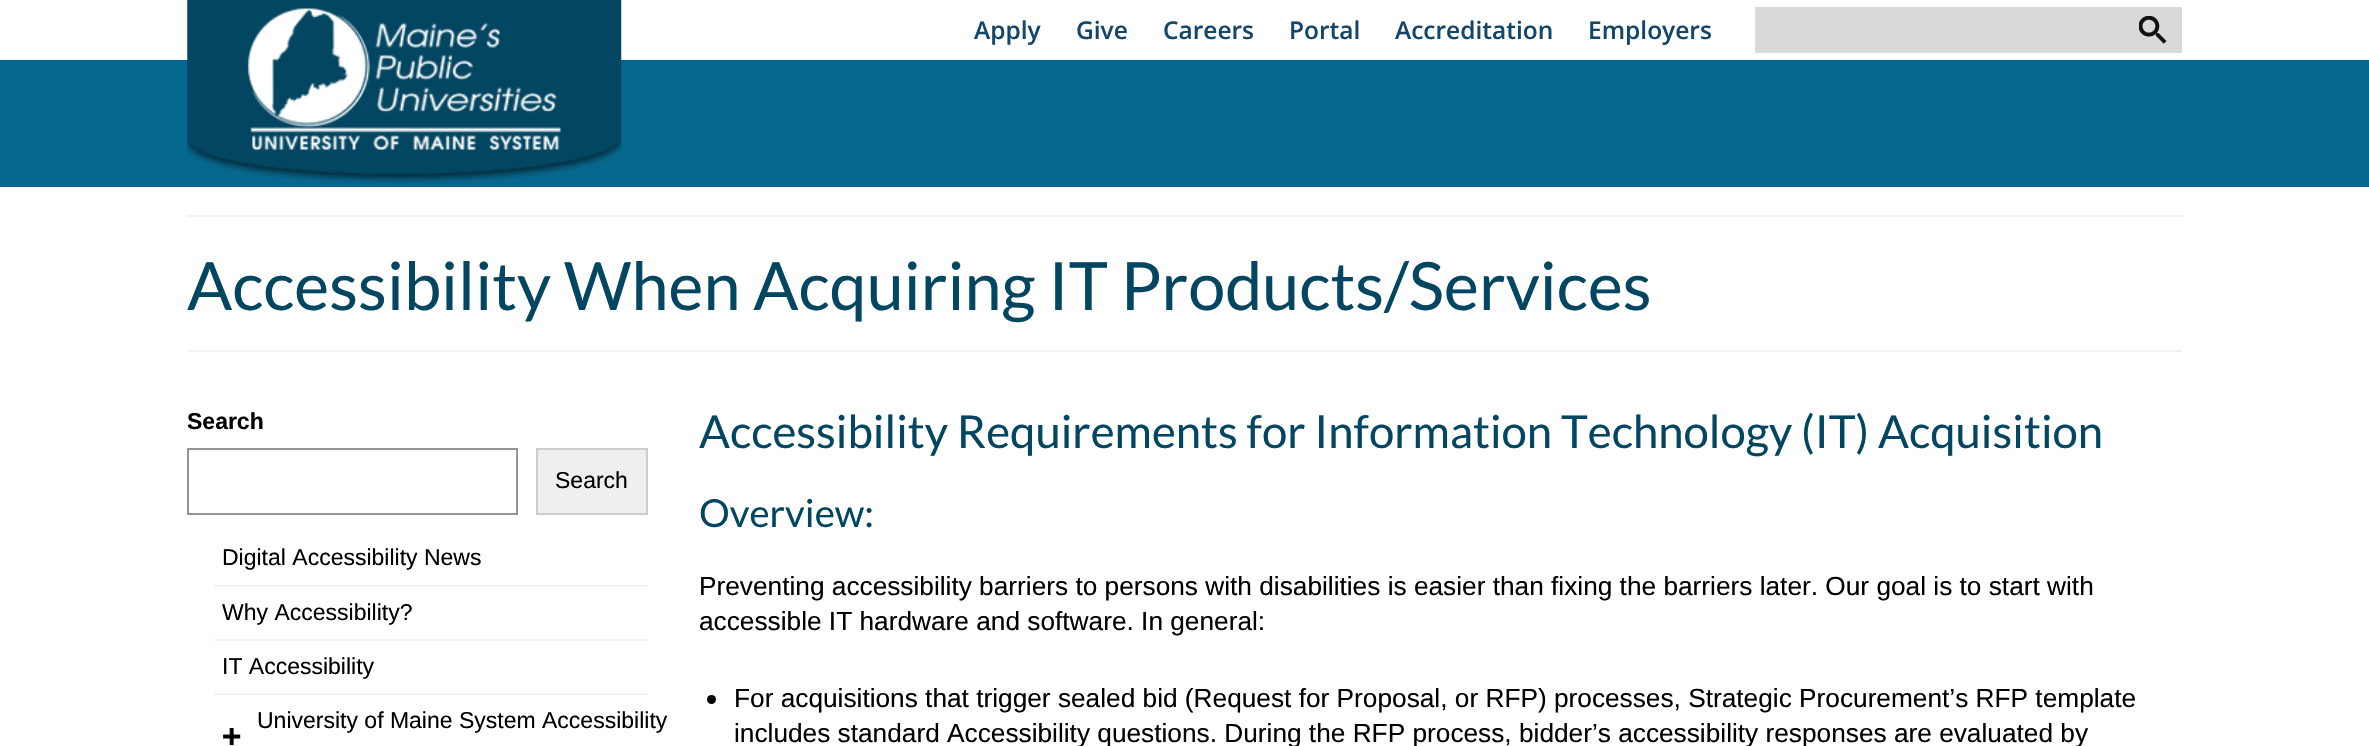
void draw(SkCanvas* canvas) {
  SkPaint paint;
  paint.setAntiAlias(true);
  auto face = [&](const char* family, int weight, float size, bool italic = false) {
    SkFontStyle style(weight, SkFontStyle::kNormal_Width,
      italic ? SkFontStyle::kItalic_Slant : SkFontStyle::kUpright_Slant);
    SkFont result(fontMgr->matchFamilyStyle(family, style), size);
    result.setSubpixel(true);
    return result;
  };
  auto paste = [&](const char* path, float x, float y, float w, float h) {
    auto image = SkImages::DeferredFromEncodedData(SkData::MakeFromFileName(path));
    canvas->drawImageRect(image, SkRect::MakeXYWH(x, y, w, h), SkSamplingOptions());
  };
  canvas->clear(0xffffffff);
  paint.setColor(0xff07688f);
  canvas->drawRect(SkRect::MakeXYWH(0, 60, 2369, 127), paint);
  paste("img/1.png", 187, 0, 435, 184);
  paint.setColor(0xffd9d9d9);
  canvas->drawRect(SkRect::MakeXYWH(1755, 7, 427, 46), paint);
  paste("img/2.png", 2139, 16, 28, 28);
  paint.setColor(0xfff2f2f2);
  canvas->drawRect(SkRect::MakeXYWH(187, 215, 1995, 2), paint);
  canvas->drawRect(SkRect::MakeXYWH(187, 350, 1995, 2), paint);
  paint.setStroke(true);
  paint.setStrokeWidth(2);
  paint.setColor(0xff949494);
  canvas->drawRect(SkRect::MakeXYWH(188, 449, 329, 65), paint);
  paint.setStroke(false);
  paint.setColor(0xffefefef);
  canvas->drawRect(SkRect::MakeXYWH(537, 449, 110, 65), paint);
  paint.setStroke(true);
  paint.setColor(0xffcccccc);
  canvas->drawRect(SkRect::MakeXYWH(537, 449, 110, 65), paint);
  paint.setStroke(false);
  {
    const struct { float x, y, w, h; SkColor color; } items[] = {
      {214, 585, 434, 2, 0xfff2f2f2},
      {214, 639, 434, 2, 0xfff2f2f2},
      {214, 693, 434, 2, 0xfff2f2f2},
    };
    for (auto [x, y, w, h, color] : items) {
      paint.setColor(color);
      canvas->drawRect(SkRect::MakeXYWH(x, y, w, h), paint);
    }
  }
  paste("img/3.png", 223, 728, 18, 18);
  paint.setColor(0xff000000);
  canvas->drawCircle(711.5f, 699.5f, 4.5f, paint);
  auto f0 = face("Open Sans", 600, 24.5f);
  paint.setColor(0xff14466b);
  {
    const struct { const char* s; float x, y; } items[] = {
      {"Apply", 974, 39},
      {"Give", 1076, 39},
      {"Careers", 1163, 39},
      {"Portal", 1289, 39},
      {"Accreditation", 1395, 39},
      {"Employers", 1588, 39},
    };
    for (auto [s, x, y] : items) {
      canvas->drawString(s, x, y, f0, paint);
    }
  }
  auto f1 = face("Lato", 400, 66.5f);
  paint.setColor(0xff034661);
  canvas->drawString("Accessibility When Acquiring IT Products/Services", 187, 310, f1, paint);
  auto f2 = face("Liberation Sans", 700, 23);
  paint.setColor(0xff000000);
  canvas->drawString("Search", 187, 429, f2, paint);
  auto f3 = face("Liberation Sans", 400, 23);
  {
    const struct { const char* s; float x, y; } items[] = {
      {"Search", 555, 488},
      {"Digital Accessibility News", 222, 565},
      {"Why Accessibility?", 222, 620},
      {"IT Accessibility", 222, 674},
      {"University of Maine System Accessibility", 257, 728},
    };
    for (auto [s, x, y] : items) {
      canvas->drawString(s, x, y, f3, paint);
    }
  }
  auto f4 = face("Lato", 400, 45.5f);
  paint.setColor(0xff034661);
  canvas->drawString("Accessibility Requirements for Information Technology (IT) Acquisition", 699, 448, f4, paint);
  auto f5 = face("Lato", 400, 38.5f);
  canvas->drawString("Overview:", 699, 527, f5, paint);
  auto f6 = face("Liberation Sans", 400, 26.25f);
  paint.setColor(0xff000000);
  {
    const struct { const char* s; float x, y; } items[] = {
      {"Preventing accessibility barriers to persons with disabilities is easier than fixing the barriers later. Our goal is to start with", 699, 595},
      {"accessible IT hardware and software. In general:", 699, 630},
      {"For acquisitions that trigger sealed bid (Request for Proposal, or RFP) processes, Strategic Procurement’s RFP template", 734, 707},
      {"includes standard Accessibility questions. During the RFP process, bidder’s accessibility responses are evaluated by", 734, 742},
    };
    for (auto [s, x, y] : items) {
      canvas->drawString(s, x, y, f6, paint);
    }
  }
}
